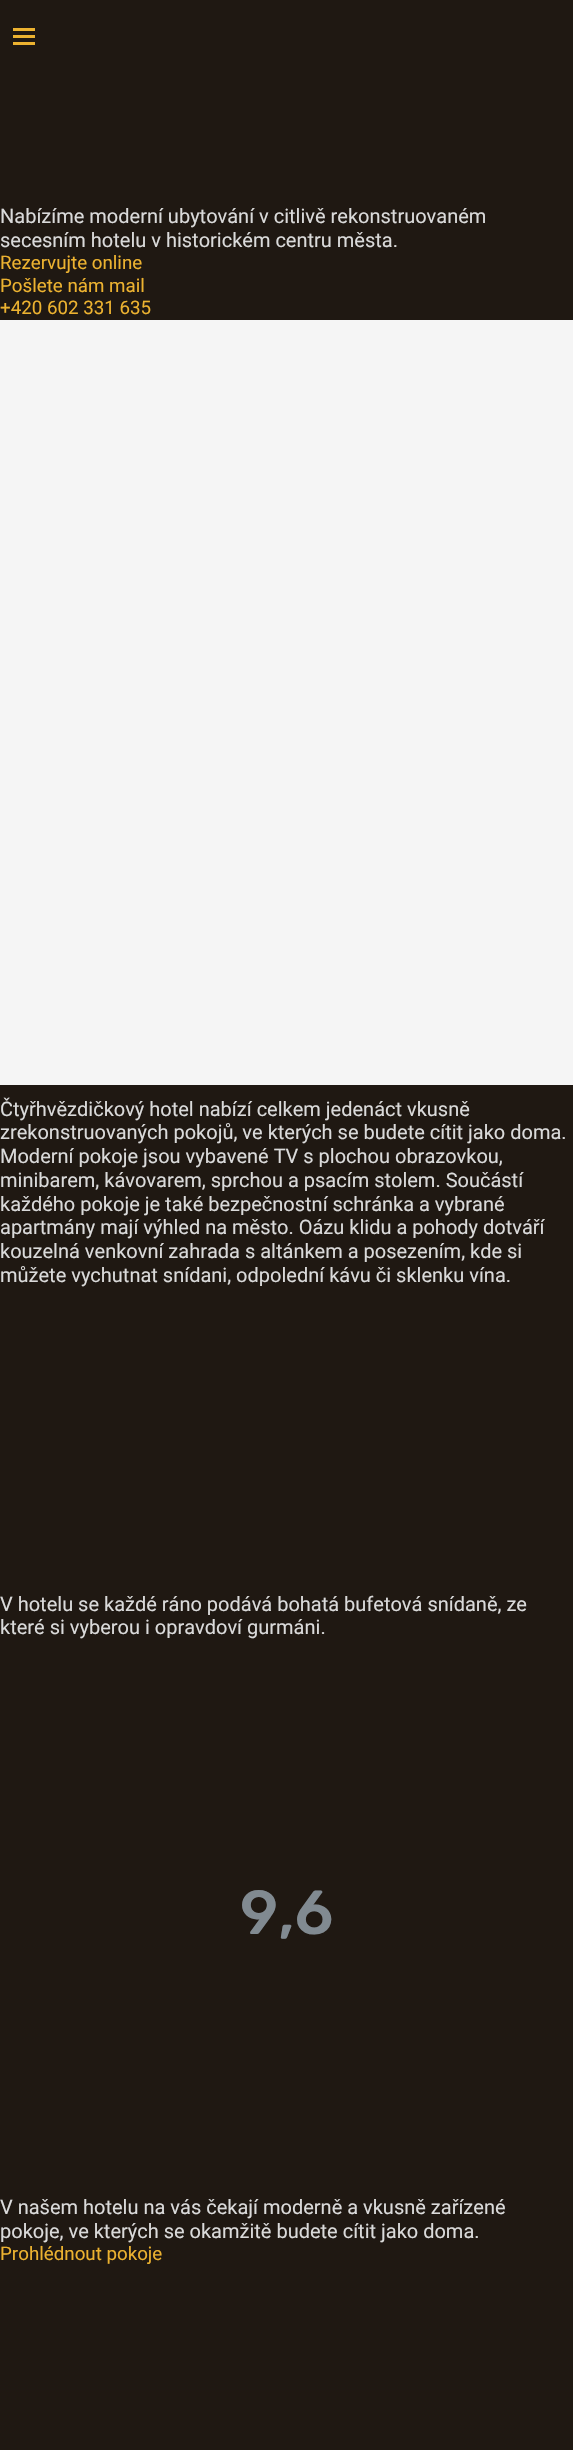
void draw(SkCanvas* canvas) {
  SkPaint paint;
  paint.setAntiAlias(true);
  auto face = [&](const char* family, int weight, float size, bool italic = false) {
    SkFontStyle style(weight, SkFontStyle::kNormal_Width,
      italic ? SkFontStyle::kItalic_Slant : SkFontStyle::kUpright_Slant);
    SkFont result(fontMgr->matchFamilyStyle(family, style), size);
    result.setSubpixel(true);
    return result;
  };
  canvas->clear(0xff1f1812);
  {
    const struct { float x, y, w, h; SkColor color; } items[] = {
      {13, 28, 22, 3, 0xffecb230},
      {13, 35, 22, 3, 0xffecb230},
      {13, 42, 22, 3, 0xffecb230},
      {0, 320, 573, 765, 0xfff5f5f5},
    };
    for (auto [x, y, w, h, color] : items) {
      paint.setColor(color);
      canvas->drawRect(SkRect::MakeXYWH(x, y, w, h), paint);
    }
  }
  auto f0 = face("Roboto", 400, 20);
  paint.setColor(0xffdadada);
  canvas->drawString("Nabízíme moderní ubytování v citlivě rekonstruovaném", 0, 223, f0, paint);
  canvas->drawString("secesním hotelu v historickém centru města.", 0, 247, f0, paint);
  auto f1 = face("Roboto", 400, 18.75f);
  paint.setColor(0xffecb230);
  {
    const struct { const char* s; float x, y; } items[] = {
      {"Rezervujte online", 0, 269},
      {"Pošlete nám mail", 0, 292},
      {"+420 602 331 635", 0, 314},
    };
    for (auto [s, x, y] : items) {
      canvas->drawString(s, x, y, f1, paint);
    }
  }
  paint.setColor(0xffdadada);
  {
    const struct { const char* s; float x, y; } items[] = {
      {"Čtyřhvězdičkový hotel nabízí celkem jedenáct vkusně", 0, 1116},
      {"zrekonstruovaných pokojů, ve kterých se budete cítit jako doma.", 0, 1139},
      {"Moderní pokoje jsou vybavené TV s plochou obrazovkou,", 0, 1163},
      {"minibarem, kávovarem, sprchou a psacím stolem. Součástí", 0, 1187},
      {"každého pokoje je také bezpečnostní schránka a vybrané", 0, 1211},
      {"apartmány mají výhled na město. Oázu klidu a pohody dotváří", 0, 1234},
      {"kouzelná venkovní zahrada s altánkem a posezením, kde si", 0, 1258},
      {"můžete vychutnat snídani, odpolední kávu či sklenku vína.", 0, 1282},
      {"V hotelu se každé ráno podává bohatá bufetová snídaně, ze", 0, 1611},
      {"které si vyberou i opravdoví gurmáni.", 0, 1634},
    };
    for (auto [s, x, y] : items) {
      canvas->drawString(s, x, y, f0, paint);
    }
  }
  auto f2 = face("Rubik", 500, 62);
  paint.setColor(0xff818a91);
  canvas->drawString("9,6", 240, 1934, f2, paint);
  paint.setColor(0xffdadada);
  canvas->drawString("V našem hotelu na vás čekají moderně a vkusně zařízené", 0, 2214, f0, paint);
  canvas->drawString("pokoje, ve kterých se okamžitě budete cítit jako doma.", 0, 2238, f0, paint);
  paint.setColor(0xffecb230);
  canvas->drawString("Prohlédnout pokoje", 0, 2260, f1, paint);
}
